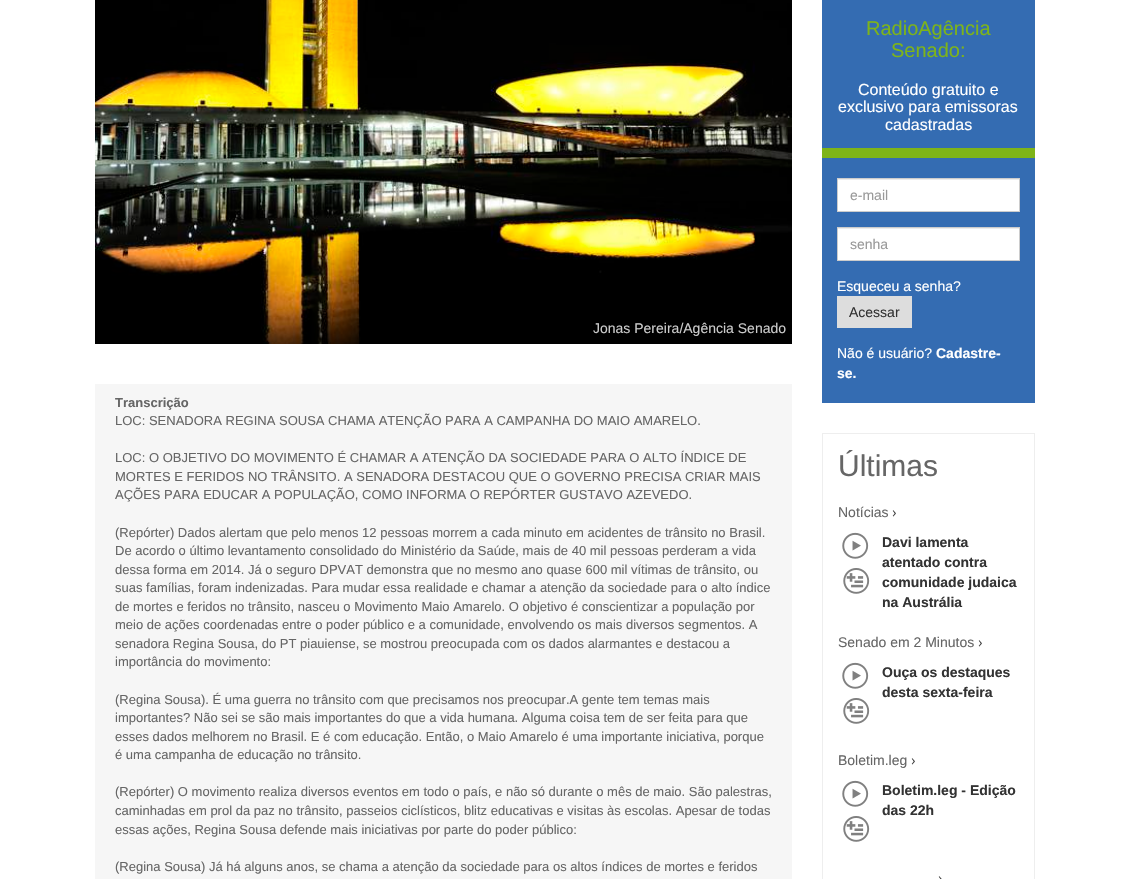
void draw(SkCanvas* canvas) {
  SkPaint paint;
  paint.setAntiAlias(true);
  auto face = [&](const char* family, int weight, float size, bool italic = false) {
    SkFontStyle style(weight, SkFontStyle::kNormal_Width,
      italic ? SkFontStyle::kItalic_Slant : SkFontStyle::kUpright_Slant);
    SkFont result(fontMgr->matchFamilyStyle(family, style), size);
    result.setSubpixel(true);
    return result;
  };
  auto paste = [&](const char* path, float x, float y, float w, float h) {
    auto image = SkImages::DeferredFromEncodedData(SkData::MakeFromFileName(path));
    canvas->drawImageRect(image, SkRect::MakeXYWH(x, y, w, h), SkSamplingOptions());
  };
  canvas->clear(0xffffffff);
  paste("img/1.png", 95, 0, 697, 344);
  {
    const struct { float x, y, w, h; SkColor color; } items[] = {
      {95, 384, 697, 495, 0xfff6f6f6},
      {822, 0, 213, 403, 0xff346cb2},
      {822, 148, 213, 10, 0xff7eb419},
      {838, 180, 181, 31, 0xffffffff},
      {838, 179, 181, 1, 0xffececec},
    };
    for (auto [x, y, w, h, color] : items) {
      paint.setColor(color);
      canvas->drawRect(SkRect::MakeXYWH(x, y, w, h), paint);
    }
  }
  paint.setStroke(true);
  paint.setStrokeWidth(1);
  paint.setColor(0xffcccccc);
  canvas->drawRect(SkRect::MakeXYWH(837.5f, 178.5f, 182, 33), paint);
  paint.setStroke(false);
  paint.setColor(0xffffffff);
  canvas->drawRect(SkRect::MakeXYWH(838, 229, 181, 31), paint);
  paint.setColor(0xffececec);
  canvas->drawRect(SkRect::MakeXYWH(838, 228, 181, 1), paint);
  paint.setStroke(true);
  paint.setColor(0xffcccccc);
  canvas->drawRect(SkRect::MakeXYWH(837.5f, 227.5f, 182, 33), paint);
  paint.setStroke(false);
  paint.setColor(0xffdddddd);
  canvas->drawRect(SkRect::MakeXYWH(837, 296, 75, 32), paint);
  paint.setStroke(true);
  paint.setColor(0xffeeeeee);
  canvas->drawRect(SkRect::MakeXYWH(822.5f, 433.5f, 212, 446), paint);
  paste("img/2.png", 892, 510, 4, 7);
  paste("img/3.png", 842, 532, 27, 27);
  paste("img/4.png", 843, 568, 27, 26);
  paste("img/2.png", 978, 640, 4, 7);
  paste("img/3.png", 842, 662, 27, 27);
  paste("img/4.png", 843, 698, 27, 26);
  paste("img/2.png", 911, 758, 4, 7);
  paste("img/3.png", 842, 780, 27, 27);
  paste("img/4.png", 843, 816, 27, 26);
  paste("img/5.png", 938, 876, 4, 3);
  auto f0 = face("Liberation Sans", 400, 14);
  paint.setStroke(false);
  paint.setColor(0xffcccccc);
  canvas->drawString("Jonas Pereira/Agência Senado", 593, 333, f0, paint);
  auto f1 = face("Liberation Sans", 700, 13);
  paint.setColor(0xff666666);
  canvas->drawString("Transcrição", 115, 407, f1, paint);
  auto f2 = face("Liberation Sans", 400, 13);
  {
    const struct { const char* s; float x, y; } items[] = {
      {"LOC: SENADORA REGINA SOUSA CHAMA ATENÇÃO PARA A CAMPANHA DO MAIO AMARELO.", 115, 425},
      {"LOC: O OBJETIVO DO MOVIMENTO É CHAMAR A ATENÇÃO DA SOCIEDADE PARA O ALTO ÍNDICE DE", 115, 462},
      {"MORTES E FERIDOS NO TRÂNSITO. A SENADORA DESTACOU QUE O GOVERNO PRECISA CRIAR MAIS", 115, 481},
      {"AÇÕES PARA EDUCAR A POPULAÇÃO, COMO INFORMA O REPÓRTER GUSTAVO AZEVEDO.", 115, 499},
      {"(Repórter) Dados alertam que pelo menos 12 pessoas morrem a cada minuto em acidentes de trânsito no Brasil.", 115, 537},
      {"De acordo o último levantamento consolidado do Ministério da Saúde, mais de 40 mil pessoas perderam a vida", 115, 555},
      {"dessa forma em 2014. Já o seguro DPVAT demonstra que no mesmo ano quase 600 mil vítimas de trânsito, ou", 115, 574},
      {"suas famílias, foram indenizadas. Para mudar essa realidade e chamar a atenção da sociedade para o alto índice", 115, 592},
      {"de mortes e feridos no trânsito, nasceu o Movimento Maio Amarelo. O objetivo é conscientizar a população por", 115, 611},
      {"meio de ações coordenadas entre o poder público e a comunidade, envolvendo os mais diversos segmentos. A", 115, 629},
      {"senadora Regina Sousa, do PT piauiense, se mostrou preocupada com os dados alarmantes e destacou a", 115, 648},
      {"importância do movimento:", 115, 666},
      {"(Regina Sousa). É uma guerra no trânsito com que precisamos nos preocupar.A gente tem temas mais", 115, 704},
      {"importantes? Não sei se são mais importantes do que a vida humana. Alguma coisa tem de ser feita para que", 115, 722},
      {"esses dados melhorem no Brasil. E é com educação. Então, o Maio Amarelo é uma importante iniciativa, porque", 115, 741},
      {"é uma campanha de educação no trânsito.", 115, 759},
      {"(Repórter) O movimento realiza diversos eventos em todo o país, e não só durante o mês de maio. São palestras,", 115, 796},
      {"caminhadas em prol da paz no trânsito, passeios ciclísticos, blitz educativas e visitas às escolas. Apesar de todas", 115, 815},
      {"essas ações, Regina Sousa defende mais iniciativas por parte do poder público:", 115, 834},
      {"(Regina Sousa) Já há alguns anos, se chama a atenção da sociedade para os altos índices de mortes e feridos", 115, 871},
    };
    for (auto [s, x, y] : items) {
      canvas->drawString(s, x, y, f2, paint);
    }
  }
  auto f3 = face("Liberation Sans", 400, 20);
  paint.setColor(0xff7eb419);
  canvas->drawString("RadioAgência", 866, 35, f3, paint);
  canvas->drawString("Senado:", 891, 57, f3, paint);
  auto f4 = face("Liberation Sans", 400, 16);
  paint.setColor(0xffffffff);
  {
    const struct { const char* s; float x, y; } items[] = {
      {"Conteúdo gratuito e", 858, 95},
      {"exclusivo para emissoras", 838, 112},
      {"cadastradas", 885, 130},
    };
    for (auto [s, x, y] : items) {
      canvas->drawString(s, x, y, f4, paint);
    }
  }
  paint.setColor(0xff999999);
  canvas->drawString("e-mail", 850, 200, f0, paint);
  canvas->drawString("senha", 850, 249, f0, paint);
  paint.setColor(0xffffffff);
  canvas->drawString("Esqueceu a senha?", 837, 291, f0, paint);
  paint.setColor(0xff333333);
  canvas->drawString("Acessar", 849, 317, f0, paint);
  paint.setColor(0xffffffff);
  canvas->drawString("Não é usuário?", 837, 358, f0, paint);
  auto f5 = face("Liberation Sans", 700, 14);
  canvas->drawString("Cadastre-", 936, 358, f5, paint);
  canvas->drawString("se.", 837, 378, f5, paint);
  auto f6 = face("Liberation Sans", 400, 30);
  paint.setColor(0xff666666);
  canvas->drawString("Últimas", 838, 476, f6, paint);
  canvas->drawString("Notícias", 838, 517, f0, paint);
  paint.setColor(0xff333333);
  {
    const struct { const char* s; float x, y; } items[] = {
      {"Davi lamenta", 882, 547},
      {"atentado contra", 882, 567},
      {"comunidade judaica", 882, 587},
      {"na Austrália", 882, 607},
    };
    for (auto [s, x, y] : items) {
      canvas->drawString(s, x, y, f5, paint);
    }
  }
  paint.setColor(0xff666666);
  canvas->drawString("Senado em 2 Minutos", 838, 647, f0, paint);
  paint.setColor(0xff333333);
  canvas->drawString("Ouça os destaques", 882, 677, f5, paint);
  canvas->drawString("desta sexta-feira", 882, 697, f5, paint);
  paint.setColor(0xff666666);
  canvas->drawString("Boletim.leg", 838, 765, f0, paint);
  paint.setColor(0xff333333);
  canvas->drawString("Boletim.leg - Edição", 882, 795, f5, paint);
  canvas->drawString("das 22h", 882, 815, f5, paint);
}
